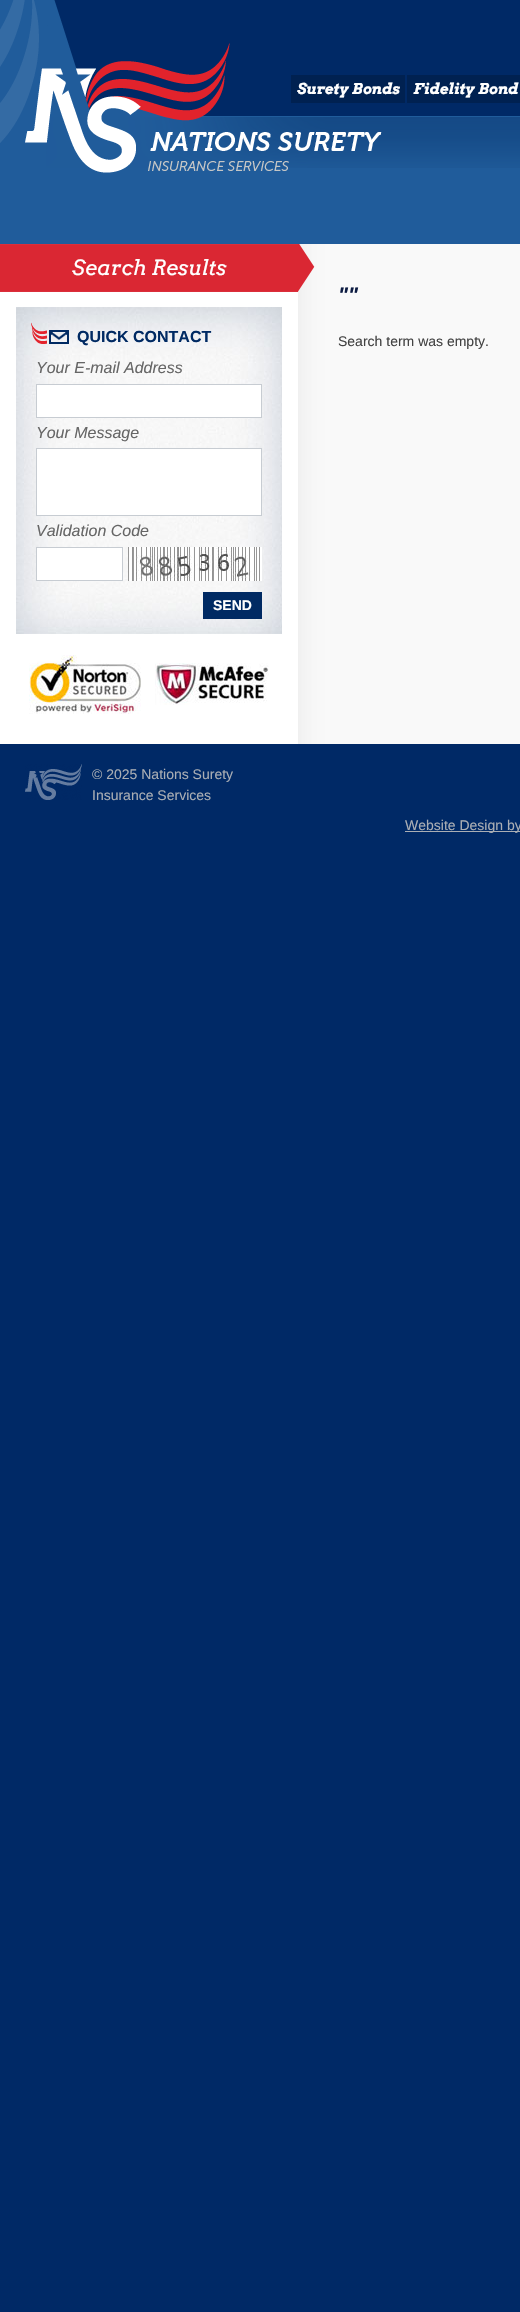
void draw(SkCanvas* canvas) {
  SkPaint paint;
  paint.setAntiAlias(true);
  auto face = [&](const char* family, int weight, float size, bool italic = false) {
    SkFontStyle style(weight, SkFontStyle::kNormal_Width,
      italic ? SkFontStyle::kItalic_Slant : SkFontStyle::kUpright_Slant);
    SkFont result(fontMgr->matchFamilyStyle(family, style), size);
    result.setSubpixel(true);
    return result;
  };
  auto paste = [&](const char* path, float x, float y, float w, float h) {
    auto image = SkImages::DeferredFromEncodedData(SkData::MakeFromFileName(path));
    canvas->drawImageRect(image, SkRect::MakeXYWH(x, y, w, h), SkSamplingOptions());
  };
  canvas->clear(0xff002966);
  paint.setColor(0xff205c9b);
  canvas->drawRect(SkRect::MakeXYWH(0, 0, 520, 245), paint);
  paste("img/1.png", 0, 0, 520, 168);
  paste("img/2.png", 25, 43, 205, 130);
  paint.setColor(0xff002151);
  canvas->drawRect(SkRect::MakeXYWH(291, 75, 114, 28), paint);
  canvas->drawRect(SkRect::MakeXYWH(407, 75, 113, 28), paint);
  paste("img/3.png", 148, 132, 234, 39);
  paste("img/4.png", 0, 244, 520, 41);
  paste("img/5.png", 0, 285, 520, 459);
  paste("img/6.png", 0, 244, 315, 48);
  paste("img/7.png", 16, 307, 266, 327);
  paste("img/8.png", 31, 322, 38, 22);
  paint.setColor(0xffffffff);
  canvas->drawRect(SkRect::MakeXYWH(36.5f, 384.5f, 225, 33), paint);
  paint.setStroke(true);
  paint.setStrokeWidth(1);
  paint.setColor(0xffc7ccd2);
  canvas->drawRect(SkRect::MakeXYWH(36.5f, 384.5f, 225, 33), paint);
  paint.setStroke(false);
  paint.setColor(0xffffffff);
  canvas->drawRect(SkRect::MakeXYWH(36.5f, 448.5f, 225, 67), paint);
  paint.setStroke(true);
  paint.setColor(0xffc7ccd2);
  canvas->drawRect(SkRect::MakeXYWH(36.5f, 448.5f, 225, 67), paint);
  paint.setStroke(false);
  paint.setColor(0xffffffff);
  canvas->drawRect(SkRect::MakeXYWH(36.5f, 547.5f, 86, 33), paint);
  paint.setStroke(true);
  paint.setColor(0xffc7ccd2);
  canvas->drawRect(SkRect::MakeXYWH(36.5f, 547.5f, 86, 33), paint);
  paste("img/9.png", 128, 547, 134, 34);
  paint.setStroke(false);
  paint.setColor(0xff002a63);
  canvas->drawRect(SkRect::MakeXYWH(203, 592, 59, 27), paint);
  paste("img/10.png", 29, 655, 112, 59);
  paste("img/11.png", 155, 663, 114, 42);
  paste("img/12.png", 25, 764, 57, 36);
  paint.setColor(0xffaaaeb4);
  canvas->drawRect(SkRect::MakeXYWH(405, 831, 115, 1), paint);
  auto f0 = face("Arvo", 700, 15, true);
  paint.setColor(0xffffffff);
  canvas->drawString("Surety Bonds", 297, 94, f0, paint);
  canvas->drawString("Fidelity Bond", 413, 94, f0, paint);
  auto f1 = face("Arvo", 400, 21, true);
  canvas->drawString("Search Results", 72, 275, f1, paint);
  auto f2 = face("Liberation Sans", 700, 21, true);
  paint.setColor(0xff0c1b42);
  canvas->drawString("\"\"", 338, 302, f2, paint);
  auto f3 = face("Liberation Sans", 400, 14);
  paint.setColor(0xff424242);
  canvas->drawString("Search term was empty.", 338, 346, f3, paint);
  auto f4 = face("Liberation Sans", 700, 16);
  paint.setColor(0xff002a63);
  canvas->drawString("QUICK CONTACT", 77, 342, f4, paint);
  auto f5 = face("Liberation Sans", 400, 16, true);
  paint.setColor(0xff666666);
  {
    const struct { const char* s; float x, y; } items[] = {
      {"Your E-mail Address", 36, 373},
      {"Your Message", 36, 438},
      {"Validation Code", 36, 536},
    };
    for (auto [s, x, y] : items) {
      canvas->drawString(s, x, y, f5, paint);
    }
  }
  auto f6 = face("Liberation Sans", 700, 14);
  paint.setColor(0xffffffff);
  canvas->drawString("SEND", 213, 610, f6, paint);
  paint.setColor(0xffaaaeb4);
  {
    const struct { const char* s; float x, y; } items[] = {
      {"© 2025 Nations Surety", 92, 779},
      {"Insurance Services", 92, 800},
      {"Website Design by", 405, 830},
    };
    for (auto [s, x, y] : items) {
      canvas->drawString(s, x, y, f3, paint);
    }
  }
}
